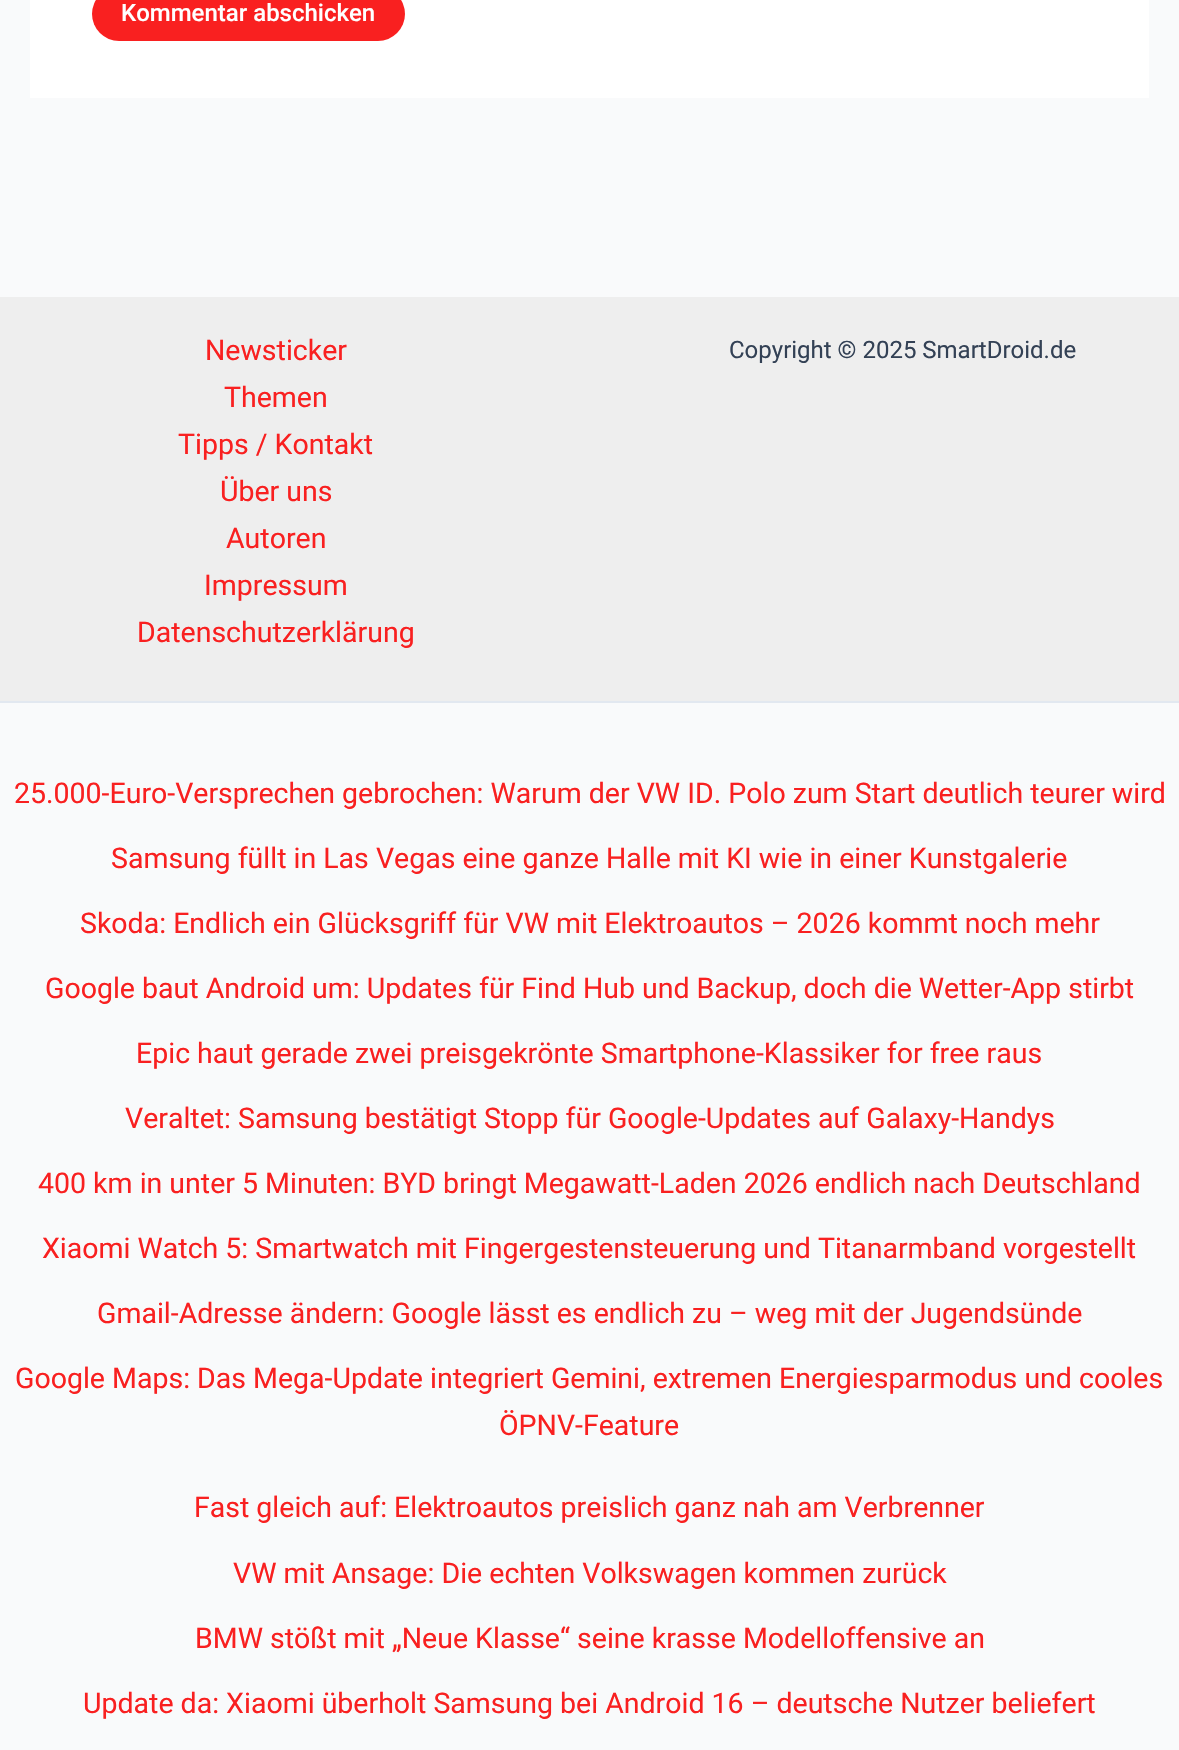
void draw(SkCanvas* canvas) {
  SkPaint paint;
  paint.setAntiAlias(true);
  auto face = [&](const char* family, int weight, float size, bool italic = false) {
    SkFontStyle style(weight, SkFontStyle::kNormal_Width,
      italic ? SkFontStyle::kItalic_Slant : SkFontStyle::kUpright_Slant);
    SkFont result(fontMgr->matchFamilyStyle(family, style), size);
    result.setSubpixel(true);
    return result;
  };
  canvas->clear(0xfff9fafb);
  paint.setColor(0xffffffff);
  canvas->drawRect(SkRect::MakeXYWH(30, 0, 1119, 98), paint);
  paint.setColor(0xfff92020);
  canvas->drawRoundRect(SkRect::MakeXYWH(92, -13, 313, 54), 27, 27, paint);
  paint.setColor(0xffeeeeee);
  canvas->drawRect(SkRect::MakeXYWH(0, 297, 1179, 404), paint);
  paint.setColor(0xffe2e8f0);
  canvas->drawRect(SkRect::MakeXYWH(0, 701, 1179, 2), paint);
  auto f0 = face("Roboto", 500, 24);
  paint.setColor(0xffffffff);
  canvas->drawString("Kommentar abschicken", 121, 21, f0, paint);
  auto f1 = face("Roboto", 400, 28.5f);
  paint.setColor(0xfff92020);
  {
    const struct { const char* s; float x, y; } items[] = {
      {"Newsticker", 205, 360},
      {"Themen", 224, 407},
      {"Tipps / Kontakt", 178, 454},
      {"Über uns", 220, 501},
      {"Autoren", 226, 548},
      {"Impressum", 204, 595},
      {"Datenschutzerklärung", 137, 642},
    };
    for (auto [s, x, y] : items) {
      canvas->drawString(s, x, y, f1, paint);
    }
  }
  auto f2 = face("Roboto", 400, 24);
  paint.setColor(0xff334155);
  canvas->drawString("Copyright © 2025 SmartDroid.de", 729, 358, f2, paint);
  paint.setColor(0xfff92020);
  {
    const struct { const char* s; float x, y; } items[] = {
      {"25.000-Euro-Versprechen gebrochen: Warum der VW ID. Polo zum Start deutlich teurer wird", 14, 803},
      {"Samsung füllt in Las Vegas eine ganze Halle mit KI wie in einer Kunstgalerie", 111, 868},
      {"Skoda: Endlich ein Glücksgriff für VW mit Elektroautos – 2026 kommt noch mehr", 80, 933},
      {"Google baut Android um: Updates für Find Hub und Backup, doch die Wetter-App stirbt", 45, 998},
      {"Epic haut gerade zwei preisgekrönte Smartphone-Klassiker for free raus", 136, 1063},
      {"Veraltet: Samsung bestätigt Stopp für Google-Updates auf Galaxy-Handys", 125, 1128},
      {"400 km in unter 5 Minuten: BYD bringt Megawatt-Laden 2026 endlich nach Deutschland", 38, 1193},
      {"Xiaomi Watch 5: Smartwatch mit Fingergestensteuerung und Titanarmband vorgestellt", 42, 1258},
      {"Gmail-Adresse ändern: Google lässt es endlich zu – weg mit der Jugendsünde", 97, 1323},
      {"Google Maps: Das Mega-Update integriert Gemini, extremen Energiesparmodus und cooles", 15, 1388},
      {"ÖPNV-Feature", 499, 1435},
      {"Fast gleich auf: Elektroautos preislich ganz nah am Verbrenner", 194, 1517},
      {"VW mit Ansage: Die echten Volkswagen kommen zurück", 233, 1583},
      {"BMW stößt mit „Neue Klasse“ seine krasse Modelloffensive an", 195, 1648},
      {"Update da: Xiaomi überholt Samsung bei Android 16 – deutsche Nutzer beliefert", 83, 1713},
    };
    for (auto [s, x, y] : items) {
      canvas->drawString(s, x, y, f1, paint);
    }
  }
}
